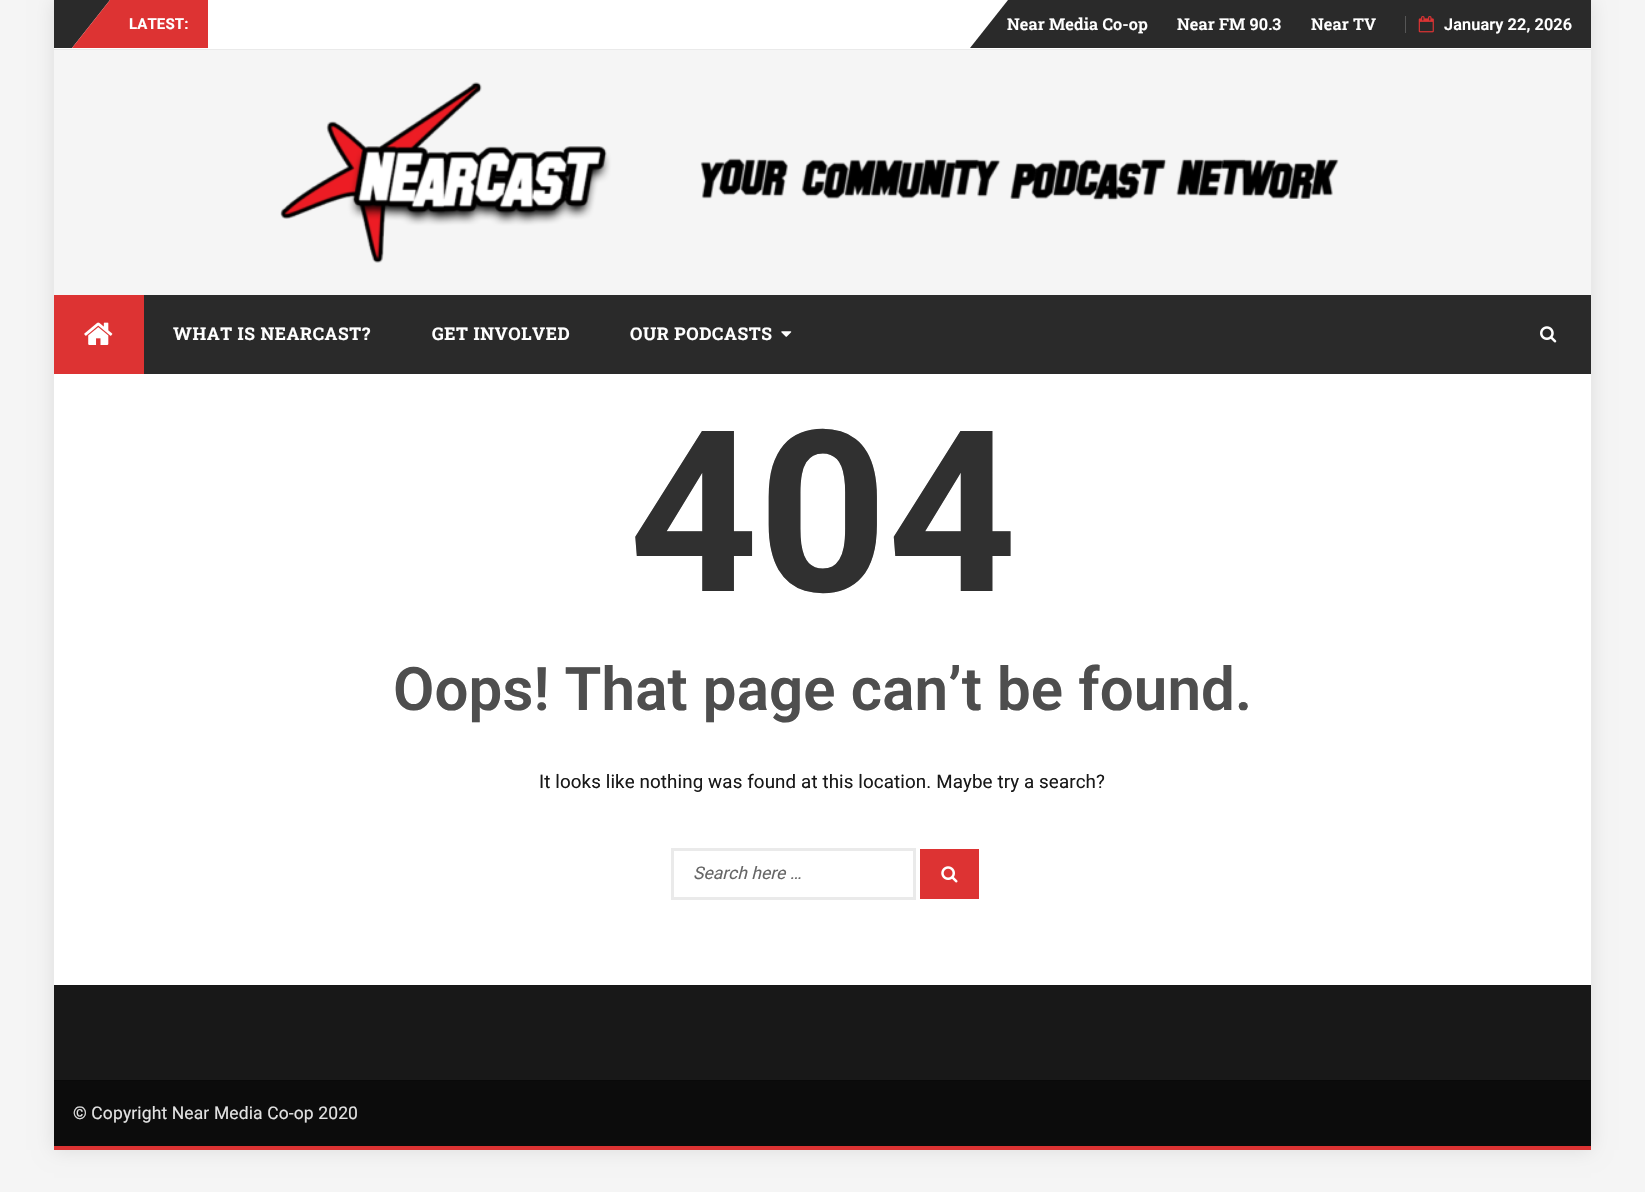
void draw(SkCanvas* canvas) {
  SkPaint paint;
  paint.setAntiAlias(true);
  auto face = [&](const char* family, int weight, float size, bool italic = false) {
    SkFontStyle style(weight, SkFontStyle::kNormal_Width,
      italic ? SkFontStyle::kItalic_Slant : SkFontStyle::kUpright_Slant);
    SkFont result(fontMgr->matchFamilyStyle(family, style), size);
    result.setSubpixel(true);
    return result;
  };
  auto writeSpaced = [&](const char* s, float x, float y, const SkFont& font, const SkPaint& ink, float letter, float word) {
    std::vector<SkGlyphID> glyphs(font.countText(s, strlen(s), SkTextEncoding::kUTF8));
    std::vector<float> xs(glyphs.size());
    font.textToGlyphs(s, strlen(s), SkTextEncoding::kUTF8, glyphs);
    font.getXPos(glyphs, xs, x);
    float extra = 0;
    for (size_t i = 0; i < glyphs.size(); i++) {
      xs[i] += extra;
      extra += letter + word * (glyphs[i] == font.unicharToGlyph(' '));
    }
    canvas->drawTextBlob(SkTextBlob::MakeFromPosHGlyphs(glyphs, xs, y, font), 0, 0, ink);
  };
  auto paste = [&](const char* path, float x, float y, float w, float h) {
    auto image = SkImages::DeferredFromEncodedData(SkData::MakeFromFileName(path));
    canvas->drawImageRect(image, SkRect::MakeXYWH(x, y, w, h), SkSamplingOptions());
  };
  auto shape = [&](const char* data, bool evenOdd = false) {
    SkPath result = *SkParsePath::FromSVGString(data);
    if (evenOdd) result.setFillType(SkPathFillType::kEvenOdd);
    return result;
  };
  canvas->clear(0xfff5f5f5);
  paint.setColor(0x1a000000);
  paint.setMaskFilter(SkMaskFilter::MakeBlur(kNormal_SkBlurStyle, 9.5f));
  canvas->drawRect(SkRect::MakeXYWH(54, 0, 1537, 1150), paint);
  paint.setMaskFilter(nullptr);
  paint.setColor(0xffffffff);
  canvas->drawRect(SkRect::MakeXYWH(54, 0, 1537, 985), paint);
  paint.setColor(0xffeaeaea);
  canvas->drawRect(SkRect::MakeXYWH(54, 49, 1537, 1), paint);
  paint.setColor(0xff2a2a2a);
  canvas->drawPath(shape("M54 0H110L72 48H54Z"), paint);
  paint.setColor(0xffdd3333);
  canvas->drawPath(shape("M208 48H72L110 0H208Z"), paint);
  paint.setColor(0xff2a2a2a);
  canvas->drawPath(shape("M1591 48H970L1008 0H1591Z"), paint);
  paint.setColor(0xff565656);
  canvas->drawRect(SkRect::MakeXYWH(1405, 16, 1, 17), paint);
  paste("img/1.png", 1418, 16, 16, 17);
  paint.setColor(0xfff5f5f5);
  canvas->drawRect(SkRect::MakeXYWH(54, 50, 1537, 245), paint);
  paste("img/2.png", 280, 82, 1059, 181);
  paint.setColor(0xff2a2a2a);
  canvas->drawRect(SkRect::MakeXYWH(144, 295, 1447, 79), paint);
  paint.setColor(0xffdd3333);
  canvas->drawRect(SkRect::MakeXYWH(54, 295, 90, 79), paint);
  paste("img/3.png", 84, 322, 29, 23);
  paste("img/4.png", 781, 331, 11, 6);
  paste("img/5.png", 1540, 326, 17, 17);
  paint.setStroke(true);
  paint.setStrokeWidth(3);
  paint.setColor(0xffeaeaea);
  canvas->drawRect(SkRect::MakeXYWH(672.5f, 849.5f, 242, 49), paint);
  paint.setStroke(false);
  paint.setColor(0xffdd3333);
  canvas->drawRect(SkRect::MakeXYWH(920, 849, 59, 50), paint);
  paste("img/6.png", 941, 866, 17, 17);
  {
    const struct { float x, y, w, h; SkColor color; } items[] = {
      {54, 986, 1537, 94, 0xff181818},
      {54, 985, 1537, 1, 0xff161616},
      {54, 1081, 1537, 65, 0xff0c0c0c},
      {54, 1080, 1537, 1, 0xff0a0a0a},
      {54, 1146, 1537, 4, 0xffdd3333},
    };
    for (auto [x, y, w, h, color] : items) {
      paint.setColor(color);
      canvas->drawRect(SkRect::MakeXYWH(x, y, w, h), paint);
    }
  }
  auto f0 = face("Roboto", 700, 15);
  paint.setColor(0xffffffff);
  writeSpaced("LATEST:", 129, 29, f0, paint, 0.12f, 0);
  auto f1 = face("Roboto Slab", 600, 16.25f);
  {
    const struct { const char* s; float x, y; } items[] = {
      {"Near Media Co-op", 1007, 30},
      {"Near FM 90.3", 1177, 30},
      {"Near TV", 1311, 30},
    };
    for (auto [s, x, y] : items) {
      writeSpaced(s, x, y, f1, paint, 0.12f, 0);
    }
  }
  auto f2 = face("Roboto", 600, 16.25f);
  writeSpaced("January 22, 2026", 1444, 30, f2, paint, 0.12f, 0);
  auto f3 = face("Roboto Slab", 700, 17.5f);
  {
    const struct { const char* s; float x, y; } items[] = {
      {"WHAT IS NEARCAST?", 173, 340},
      {"GET INVOLVED", 432, 340},
      {"OUR PODCASTS", 630, 340},
    };
    for (auto [s, x, y] : items) {
      writeSpaced(s, x, y, f3, paint, 0.6f, 0);
    }
  }
  auto f4 = face("Roboto", 700, 225);
  paint.setColor(0xff303030);
  writeSpaced("404", 629, 591, f4, paint, 0.12f, 0);
  auto f5 = face("Roboto", 600, 60);
  paint.setColor(0xff4e4e4e);
  writeSpaced("Oops! That page can’t be found.", 393, 710, f5, paint, 0.12f, 0);
  auto f6 = face("Roboto", 400, 18.75f);
  paint.setColor(0xff191919);
  writeSpaced("It looks like nothing was found at this location. Maybe try a search?", 539, 788, f6, paint, 0.12f, 0);
  auto f7 = face("Roboto", 400, 17.5f, true);
  paint.setColor(0xff666666);
  canvas->drawString("Search here …", 693, 879, f7, paint);
  auto f8 = face("Roboto", 400, 17.5f);
  paint.setColor(0xffe2e2e2);
  writeSpaced("© Copyright Near Media Co-op 2020", 73, 1119, f8, paint, 0.12f, 0);
}
